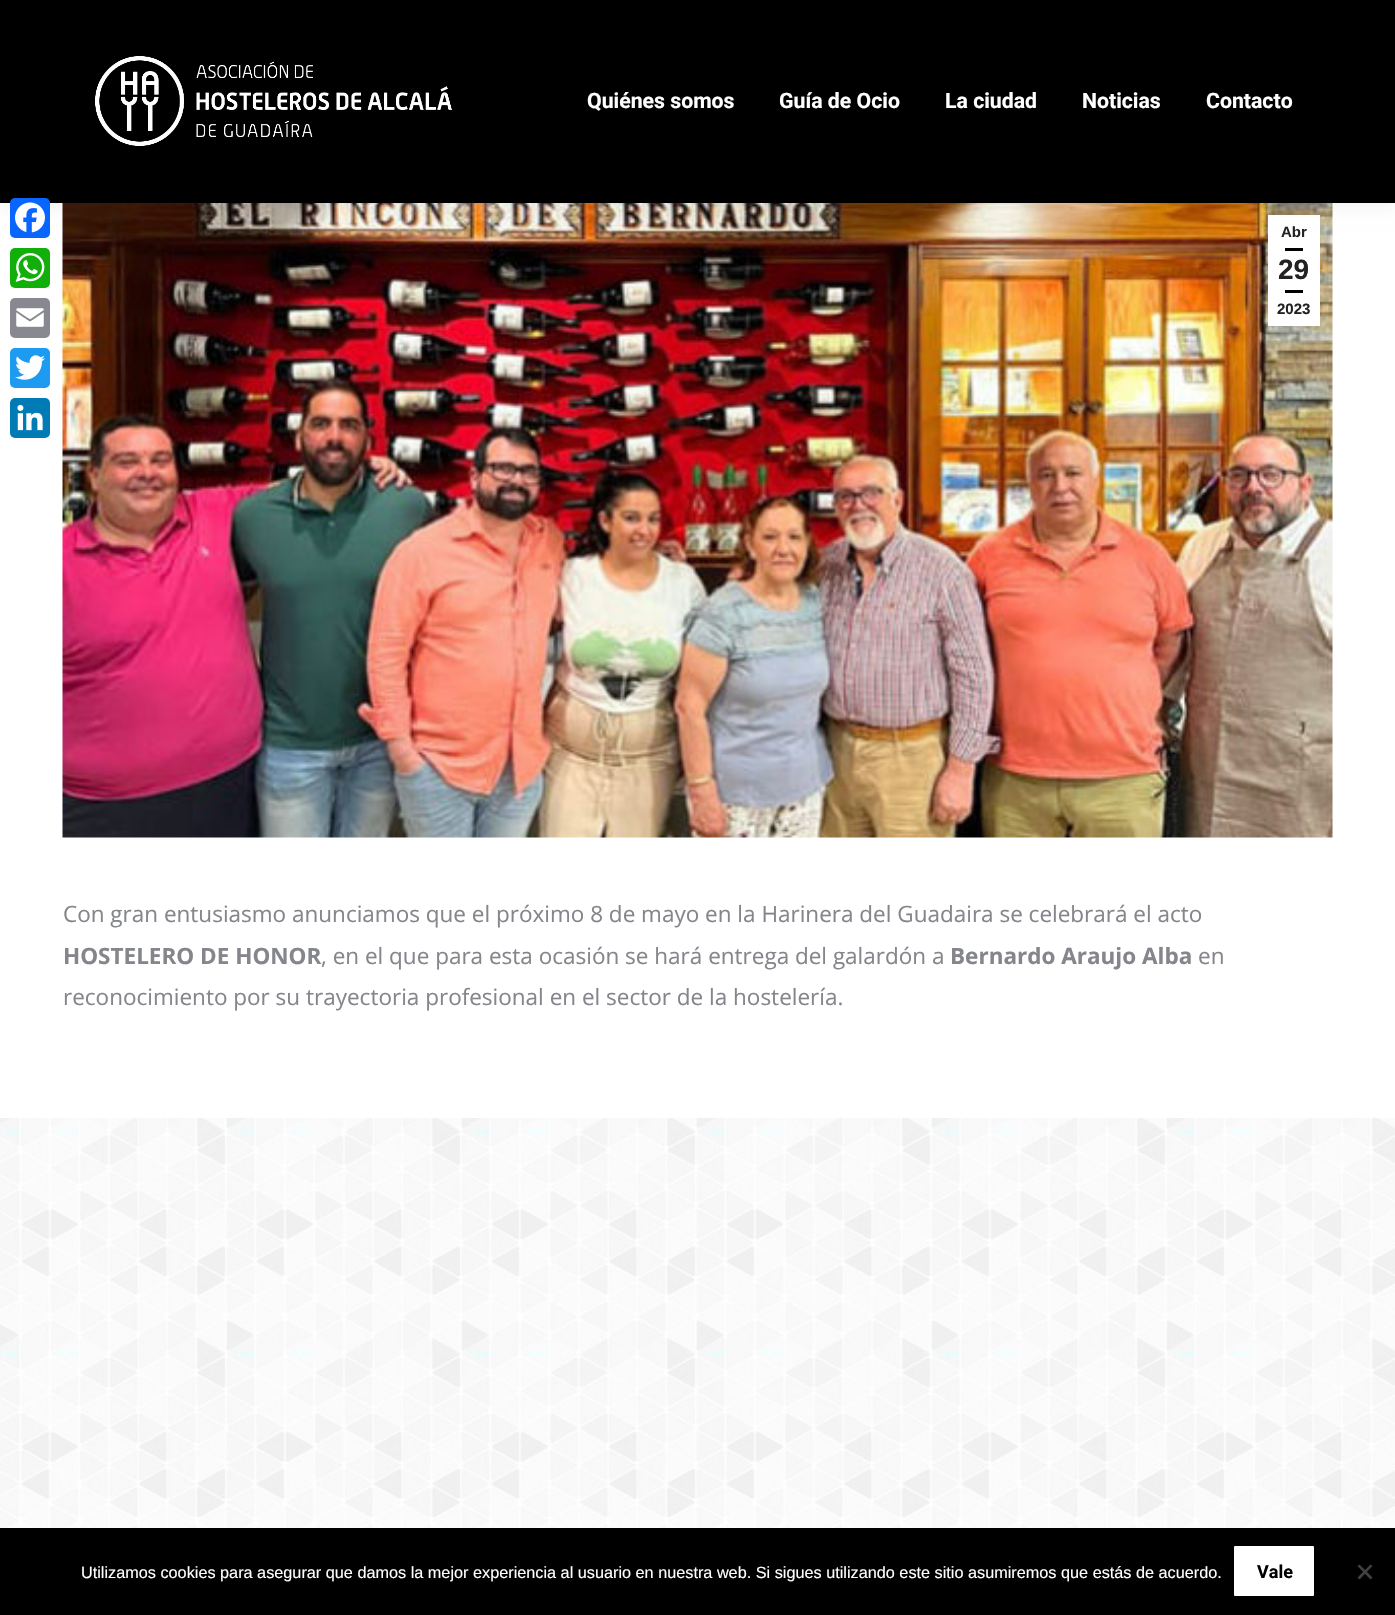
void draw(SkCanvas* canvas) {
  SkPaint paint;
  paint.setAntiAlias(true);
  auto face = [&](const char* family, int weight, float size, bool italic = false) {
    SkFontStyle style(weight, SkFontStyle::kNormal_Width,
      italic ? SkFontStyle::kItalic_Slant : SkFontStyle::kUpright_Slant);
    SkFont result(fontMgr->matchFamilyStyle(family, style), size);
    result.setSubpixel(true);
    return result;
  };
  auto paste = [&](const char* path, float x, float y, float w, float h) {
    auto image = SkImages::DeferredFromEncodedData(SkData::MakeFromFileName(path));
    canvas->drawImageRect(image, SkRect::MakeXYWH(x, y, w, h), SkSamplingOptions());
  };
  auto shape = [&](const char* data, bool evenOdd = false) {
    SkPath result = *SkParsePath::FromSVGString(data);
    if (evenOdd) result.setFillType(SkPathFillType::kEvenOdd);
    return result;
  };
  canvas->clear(0xffffffff);
  paste("img/1.png", 0, 1118, 1395, 410);
  paste("img/8.png", 62, 203, 1271, 635);
  paint.setColor(0xffffffff);
  canvas->drawRect(SkRect::MakeXYWH(1268, 215, 52, 111), paint);
  paint.setColor(0x12000000);
  paint.setMaskFilter(SkMaskFilter::MakeBlur(kNormal_SkBlurStyle, 9.5f));
  canvas->drawRect(SkRect::MakeXYWH(-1, -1, 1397, 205), paint);
  paint.setMaskFilter(nullptr);
  paint.setColor(0xff000000);
  canvas->drawRect(SkRect::MakeXYWH(0, 0, 1395, 203), paint);
  paint.setColor(0xff0866ff);
  canvas->drawRoundRect(SkRect::MakeXYWH(10, 198, 40, 40), 5, 5, paint);
  paste("img/2.png", 15, 202, 30, 31);
  paint.setColor(0xff12af0a);
  canvas->drawRoundRect(SkRect::MakeXYWH(10, 248, 40, 40), 5, 5, paint);
  paste("img/3.png", 15, 253, 30, 29);
  paint.setColor(0xff888990);
  canvas->drawRoundRect(SkRect::MakeXYWH(10, 298, 40, 40), 5, 5, paint);
  paste("img/4.png", 16, 308, 28, 19);
  paint.setColor(0xff1d9bf0);
  canvas->drawRoundRect(SkRect::MakeXYWH(10, 348, 40, 40), 5, 5, paint);
  paste("img/5.png", 15, 355, 30, 25);
  paint.setColor(0xff007bb5);
  canvas->drawRoundRect(SkRect::MakeXYWH(10, 398, 40, 40), 5, 5, paint);
  paste("img/6.png", 17, 404, 26, 27);
  paste("img/7.png", 95, 56, 357, 90);
  {
    const struct { float x, y, w, h; SkColor color; } items[] = {
      {1285, 248, 18, 3, 0xff000000},
      {1285, 290, 18, 3, 0xff000000},
      {0, 1528, 1395, 87, 0xff000000},
    };
    for (auto [x, y, w, h, color] : items) {
      paint.setColor(color);
      canvas->drawRect(SkRect::MakeXYWH(x, y, w, h), paint);
    }
  }
  paint.setColor(0xffffffff);
  canvas->drawRoundRect(SkRect::MakeXYWH(1234, 1546, 80, 50), 1, 1, paint);
  paint.setColor(0xff404040);
  canvas->drawPath(shape("M1370.5 1564.5L1372.5 1566L1359.5 1579.5L1357.5 1577.5Z"), paint);
  canvas->drawPath(shape("M1357.5 1566L1359.5 1564.5L1372.5 1577.5L1370.5 1579.5Z"), paint);
  auto f0 = face("Roboto", 700, 21.25f);
  paint.setColor(0xffffffff);
  {
    const struct { const char* s; float x, y; } items[] = {
      {"Quiénes somos", 587, 108},
      {"Guía de Ocio", 779, 108},
      {"La ciudad", 945, 108},
      {"Noticias", 1082, 108},
      {"Contacto", 1206, 108},
    };
    for (auto [s, x, y] : items) {
      canvas->drawString(s, x, y, f0, paint);
    }
  }
  auto f1 = face("Liberation Sans", 700, 15);
  paint.setColor(0xff222222);
  canvas->drawString("Abr", 1281, 237, f1, paint);
  auto f2 = face("Liberation Sans", 700, 28);
  canvas->drawString("29", 1278, 279, f2, paint);
  canvas->drawString("2023", 1277, 314, f1, paint);
  auto f3 = face("Open Sans", 400, 22.5f);
  paint.setColor(0xff85868c);
  canvas->drawString("Con gran entusiasmo anunciamos que el próximo 8 de mayo en la Harinera del Guadaira se celebrará el acto", 63, 922, f3, paint);
  auto f4 = face("Open Sans", 700, 22.5f);
  canvas->drawString("HOSTELERO DE HONOR", 63, 964, f4, paint);
  canvas->drawString(", en el que para esta ocasión se hará entrega del galardón a", 321, 964, f3, paint);
  canvas->drawString("Bernardo Araujo Alba", 950, 964, f4, paint);
  canvas->drawString("en", 1198, 964, f3, paint);
  canvas->drawString("reconocimiento por su trayectoria profesional en el sector de la hostelería.", 63, 1005, f3, paint);
  auto f5 = face("Liberation Sans", 400, 16.25f);
  paint.setColor(0xffffffff);
  canvas->drawString("Utilizamos cookies para asegurar que damos la mejor experiencia al usuario en nuestra web. Si sigues utilizando este sitio asumiremos que estás de acuerdo.", 81, 1578, f5, paint);
  auto f6 = face("Roboto", 700, 18);
  paint.setColor(0xff000000);
  canvas->drawString("Vale", 1257, 1578, f6, paint);
}
